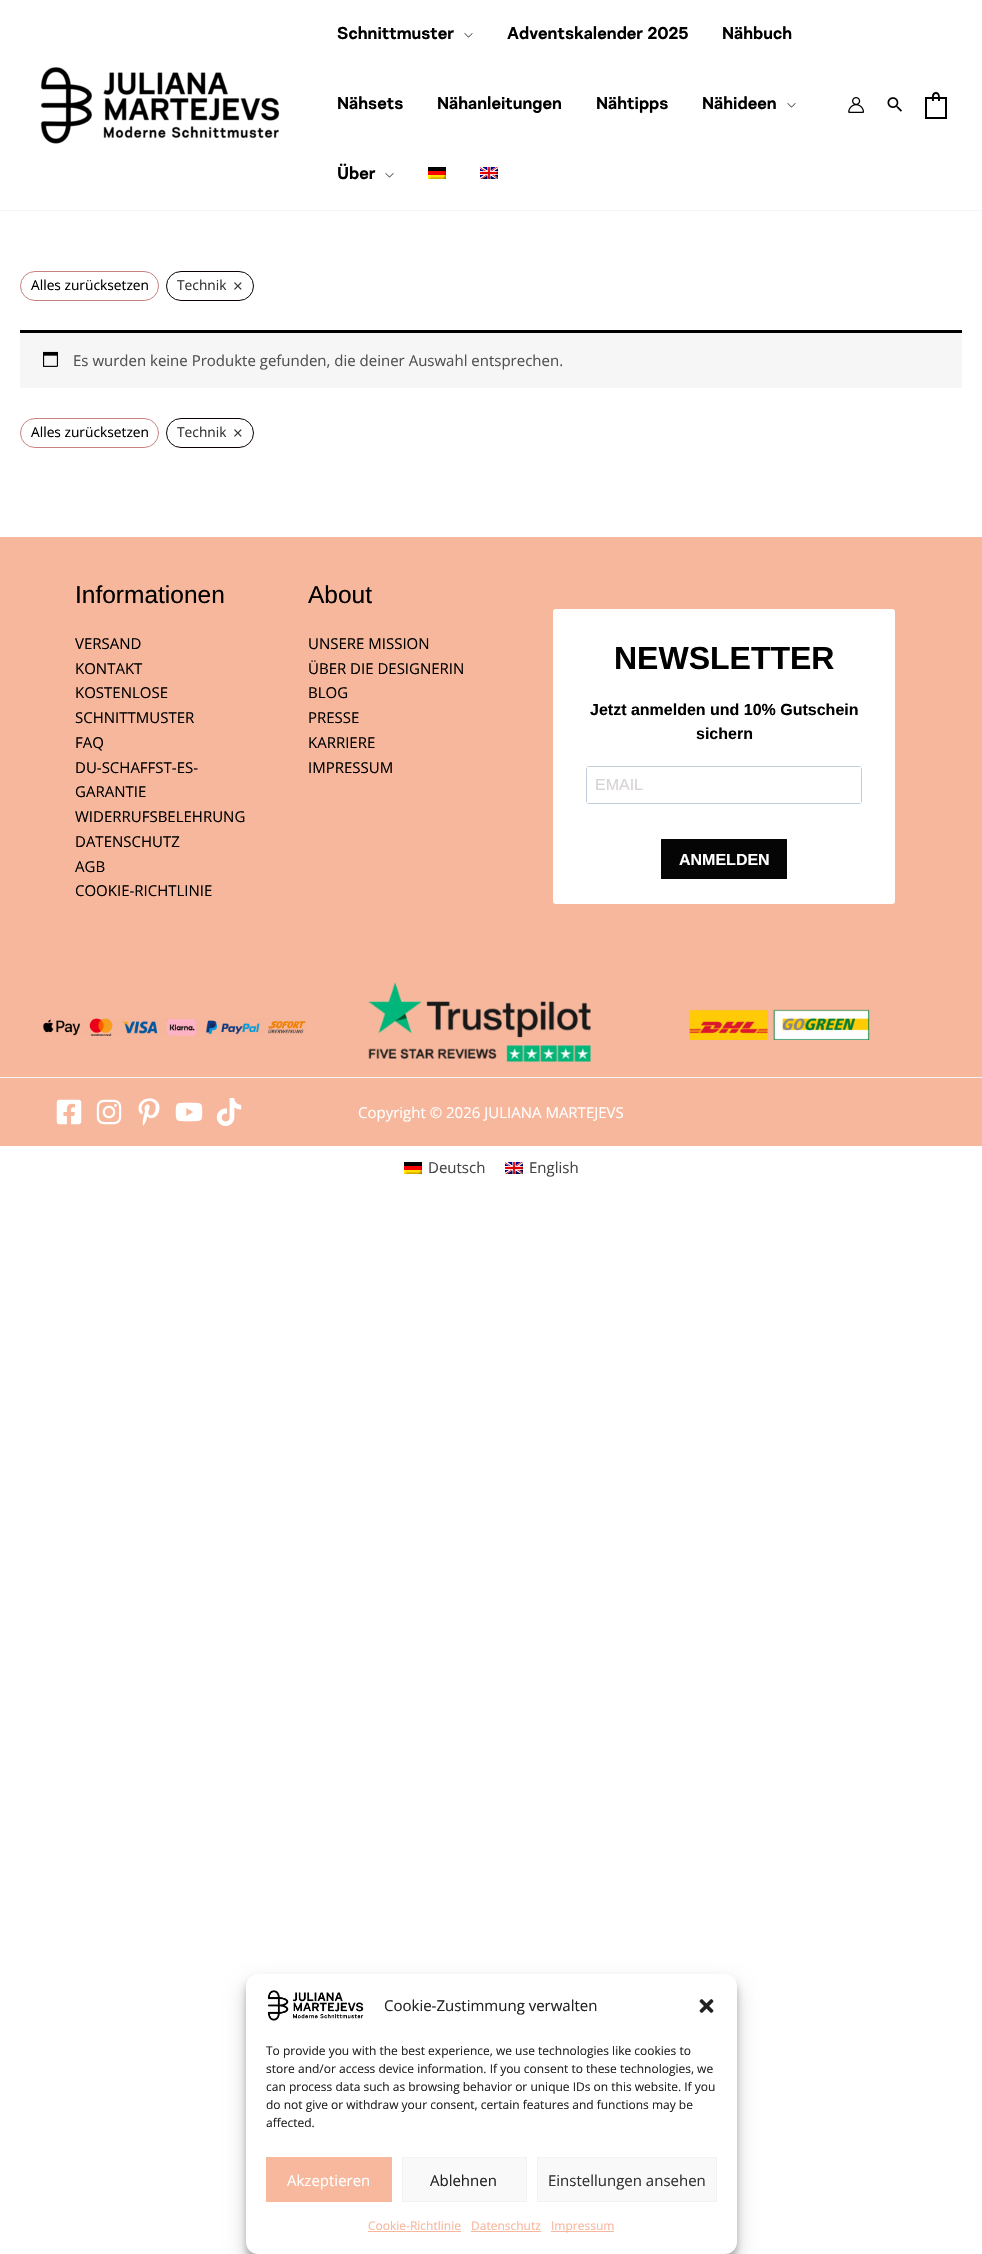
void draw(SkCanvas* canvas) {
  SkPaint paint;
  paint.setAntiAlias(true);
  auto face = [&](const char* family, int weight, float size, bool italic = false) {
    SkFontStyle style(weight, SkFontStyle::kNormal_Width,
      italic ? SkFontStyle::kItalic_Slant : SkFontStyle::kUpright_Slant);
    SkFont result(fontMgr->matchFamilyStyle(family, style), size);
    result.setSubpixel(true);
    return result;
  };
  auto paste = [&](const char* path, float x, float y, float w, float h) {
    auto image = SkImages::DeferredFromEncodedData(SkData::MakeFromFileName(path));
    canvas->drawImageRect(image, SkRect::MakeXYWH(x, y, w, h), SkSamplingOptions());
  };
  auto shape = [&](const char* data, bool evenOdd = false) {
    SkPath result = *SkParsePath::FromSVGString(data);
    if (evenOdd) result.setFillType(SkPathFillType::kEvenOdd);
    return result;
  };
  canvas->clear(0xffffffff);
  paint.setColor(0xfff2f5f7);
  canvas->drawRect(SkRect::MakeXYWH(0, 210, 982, 1), paint);
  paste("img/1.png", 40, 67, 240, 77);
  paste("img/2.png", 464, 33, 9, 5);
  paste("img/2.png", 787, 103, 9, 5);
  paste("img/2.png", 385, 173, 9, 5);
  paste("img/3.png", 428, 167, 18, 12);
  paste("img/4.png", 480, 167, 18, 12);
  paste("img/5.png", 848, 97, 17, 16);
  paste("img/6.png", 887, 97, 15, 15);
  paint.setStroke(true);
  paint.setStrokeWidth(2);
  paint.setColor(0xff000000);
  canvas->drawRect(SkRect::MakeXYWH(926, 98, 20, 20), paint);
  paint.setStroke(false);
  canvas->drawPath(shape("M936 92C940.5 92 940 98 940 101H932C932 98 931 92 936 92ZM936 94C939 94 938 99 938 101H934C934 99 933 94 936 94Z", true), paint);
  paint.setStroke(true);
  paint.setStrokeWidth(1);
  paint.setColor(0xffcc8181);
  canvas->drawRoundRect(SkRect::MakeXYWH(20.5f, 271.5f, 138, 29), 14.5f, 14.5f, paint);
  paint.setColor(0xff0a0000);
  canvas->drawRoundRect(SkRect::MakeXYWH(166.5f, 271.5f, 87, 29), 14.5f, 14.5f, paint);
  paint.setStroke(false);
  paint.setColor(0xfff7f6f7);
  canvas->drawRect(SkRect::MakeXYWH(20, 333, 942, 55), paint);
  paint.setColor(0xff000000);
  canvas->drawRect(SkRect::MakeXYWH(20, 330, 942, 3), paint);
  paste("img/7.png", 43, 351, 15, 16);
  paint.setStroke(true);
  paint.setColor(0xffcc8181);
  canvas->drawRoundRect(SkRect::MakeXYWH(20.5f, 418.5f, 138, 29), 14.5f, 14.5f, paint);
  paint.setColor(0xff0a0000);
  canvas->drawRoundRect(SkRect::MakeXYWH(166.5f, 418.5f, 87, 29), 14.5f, 14.5f, paint);
  paint.setStroke(false);
  paint.setColor(0xfff7b79c);
  canvas->drawRect(SkRect::MakeXYWH(0, 537, 982, 418), paint);
  paint.setColor(0xffffffff);
  canvas->drawRoundRect(SkRect::MakeXYWH(553, 609, 342, 295), 3, 3, paint);
  paint.setStroke(true);
  paint.setColor(0xffc0ccda);
  canvas->drawRoundRect(SkRect::MakeXYWH(586.5f, 766.5f, 275, 37), 2.5f, 2.5f, paint);
  paint.setStroke(false);
  paint.setColor(0xffffffff);
  canvas->drawRect(SkRect::MakeXYWH(587, 767, 274, 36), paint);
  paint.setColor(0xff050505);
  canvas->drawRoundRect(SkRect::MakeXYWH(661, 839, 126, 40), 0.5f, 0.5f, paint);
  paint.setColor(0xfff7b79c);
  canvas->drawRect(SkRect::MakeXYWH(0, 955, 982, 122), paint);
  paste("img/8.png", 42, 1018, 264, 18);
  paste("img/9.png", 368, 982, 223, 80);
  paste("img/10.png", 689, 1009, 181, 31);
  canvas->drawRect(SkRect::MakeXYWH(0, 1078, 982, 68), paint);
  paint.setColor(0xfff2f5f7);
  canvas->drawRect(SkRect::MakeXYWH(0, 1077, 982, 1), paint);
  paste("img/11.png", 56, 1099, 26, 26);
  paste("img/12.png", 96, 1099, 26, 26);
  paste("img/13.png", 138, 1098, 22, 28);
  paste("img/14.png", 175, 1102, 28, 20);
  paste("img/15.png", 216, 1098, 26, 28);
  paste("img/3.png", 404, 1162, 18, 12);
  paste("img/4.png", 505, 1162, 18, 12);
  paint.setColor(0x3b000000);
  paint.setMaskFilter(SkMaskFilter::MakeBlur(kNormal_SkBlurStyle, 3));
  canvas->drawRoundRect(SkRect::MakeXYWH(246, 1980, 491, 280), 12, 12, paint);
  paint.setMaskFilter(nullptr);
  paint.setColor(0x30000000);
  paint.setMaskFilter(SkMaskFilter::MakeBlur(kNormal_SkBlurStyle, 10));
  canvas->drawRoundRect(SkRect::MakeXYWH(246, 1984, 491, 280), 12, 12, paint);
  paint.setMaskFilter(nullptr);
  paint.setColor(0xffffffff);
  canvas->drawRoundRect(SkRect::MakeXYWH(246, 1974, 491, 280), 12, 12, paint);
  paste("img/16.png", 267, 1990, 97, 31);
  paste("img/17.png", 699, 1999, 15, 14);
  paint.setColor(0xfff7b89e);
  canvas->drawRect(SkRect::MakeXYWH(266, 2157, 126, 45), paint);
  paint.setColor(0xfff9f9f9);
  canvas->drawRect(SkRect::MakeXYWH(402.5f, 2157.5f, 124, 44), paint);
  paint.setStroke(true);
  paint.setColor(0xfff2f2f2);
  canvas->drawRect(SkRect::MakeXYWH(402.5f, 2157.5f, 124, 44), paint);
  paint.setStroke(false);
  paint.setColor(0xfff9f9f9);
  canvas->drawRect(SkRect::MakeXYWH(537.5f, 2157.5f, 179, 44), paint);
  paint.setStroke(true);
  paint.setColor(0xfff2f2f2);
  canvas->drawRect(SkRect::MakeXYWH(537.5f, 2157.5f, 179, 44), paint);
  paint.setStroke(false);
  {
    const struct { float x, y, w, h; SkColor color; } items[] = {
      {368, 2231, 93, 1, 0xfff7b89e},
      {471, 2231, 70, 1, 0xfff7b89e},
      {551, 2231, 63, 1, 0xfff7b89e},
    };
    for (auto [x, y, w, h, color] : items) {
      paint.setColor(color);
      canvas->drawRect(SkRect::MakeXYWH(x, y, w, h), paint);
    }
  }
  auto f0 = face("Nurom", 700, 17);
  paint.setColor(0xff000000);
  {
    const struct { const char* s; float x, y; } items[] = {
      {"Schnittmuster", 337, 39},
      {"Adventskalender 2025", 507, 39},
      {"Nähbuch", 722, 39},
      {"Nähsets", 337, 109},
      {"Nähanleitungen", 437, 109},
      {"Nähtipps", 596, 109},
      {"Nähideen", 702, 109},
      {"Über", 337, 179},
    };
    for (auto [s, x, y] : items) {
      canvas->drawString(s, x, y, f0, paint);
    }
  }
  auto f1 = face("Open Sans", 400, 13.75f);
  canvas->drawString("Alles zurücksetzen", 31, 290, f1, paint);
  paint.setColor(0xff333333);
  canvas->drawString("Technik", 177, 290, f1, paint);
  auto f2 = face("Open Sans", 400, 17);
  canvas->drawString("×", 233, 292, f2, paint);
  auto f3 = face("Open Sans", 400, 15);
  paint.setColor(0xff515151);
  canvas->drawString("Es wurden keine Produkte gefunden, die deiner Auswahl entsprechen.", 73, 366, f3, paint);
  paint.setColor(0xff000000);
  canvas->drawString("Alles zurücksetzen", 31, 437, f1, paint);
  paint.setColor(0xff333333);
  canvas->drawString("Technik", 177, 437, f1, paint);
  canvas->drawString("×", 233, 439, f2, paint);
  auto f4 = face("Liberation Sans", 400, 24.5f);
  paint.setColor(0xff000000);
  canvas->drawString("Informationen", 75, 603, f4, paint);
  {
    const struct { const char* s; float x, y; } items[] = {
      {"VERSAND", 75, 649},
      {"KONTAKT", 75, 674},
      {"KOSTENLOSE", 75, 698},
      {"SCHNITTMUSTER", 75, 723},
      {"FAQ", 75, 748},
      {"DU-SCHAFFST-ES-", 75, 773},
      {"GARANTIE", 75, 797},
      {"WIDERRUFSBELEHRUNG", 75, 822},
      {"DATENSCHUTZ", 75, 847},
      {"AGB", 75, 872},
      {"COOKIE-RICHTLINIE", 75, 896},
    };
    for (auto [s, x, y] : items) {
      canvas->drawString(s, x, y, f3, paint);
    }
  }
  canvas->drawString("About", 308, 603, f4, paint);
  {
    const struct { const char* s; float x, y; } items[] = {
      {"UNSERE MISSION", 308, 649},
      {"ÜBER DIE DESIGNERIN", 308, 674},
      {"BLOG", 308, 698},
      {"PRESSE", 308, 723},
      {"KARRIERE", 308, 748},
      {"IMPRESSUM", 308, 773},
    };
    for (auto [s, x, y] : items) {
      canvas->drawString(s, x, y, f3, paint);
    }
  }
  auto f5 = face("Liberation Sans", 700, 32);
  canvas->drawString("NEWSLETTER", 614, 669, f5, paint);
  auto f6 = face("Liberation Sans", 700, 16);
  canvas->drawString("Jetzt anmelden und 10% Gutschein", 590, 715, f6, paint);
  canvas->drawString("sichern", 696, 739, f6, paint);
  auto f7 = face("Liberation Sans", 400, 16);
  paint.setColor(0xffd6d3d2);
  canvas->drawString("EMAIL", 595, 790, f7, paint);
  paint.setColor(0xffffffff);
  canvas->drawString("ANMELDEN", 679, 865, f6, paint);
  canvas->drawString("Copyright © 2026 JULIANA MARTEJEVS", 358, 1118, f3, paint);
  paint.setColor(0xff444444);
  canvas->drawString("Deutsch", 428, 1173, f3, paint);
  canvas->drawString("English", 529, 1173, f3, paint);
  paint.setColor(0xff222222);
  canvas->drawString("Cookie-Zustimmung verwalten", 384, 2011, f3, paint);
  auto f8 = face("Open Sans", 400, 12);
  {
    const struct { const char* s; float x, y; } items[] = {
      {"To provide you with the best experience, we use technologies like cookies to", 266, 2055},
      {"store and/or access device information. If you consent to these technologies, we", 266, 2073},
      {"can process data such as browsing behavior or unique IDs on this website. If you", 266, 2091},
      {"do not give or withdraw your consent, certain features and functions may be", 266, 2109},
      {"affected.", 266, 2127},
    };
    for (auto [s, x, y] : items) {
      canvas->drawString(s, x, y, f8, paint);
    }
  }
  paint.setColor(0xffffffff);
  canvas->drawString("Akzeptieren", 287, 2186, f3, paint);
  paint.setColor(0xff222222);
  canvas->drawString("Ablehnen", 430, 2186, f3, paint);
  paint.setColor(0xff333333);
  canvas->drawString("Einstellungen ansehen", 548, 2186, f3, paint);
  paint.setColor(0xfff7b89e);
  {
    const struct { const char* s; float x, y; } items[] = {
      {"Cookie-Richtlinie", 368, 2230},
      {"Datenschutz", 471, 2230},
      {"Impressum", 551, 2230},
    };
    for (auto [s, x, y] : items) {
      canvas->drawString(s, x, y, f8, paint);
    }
  }
}
